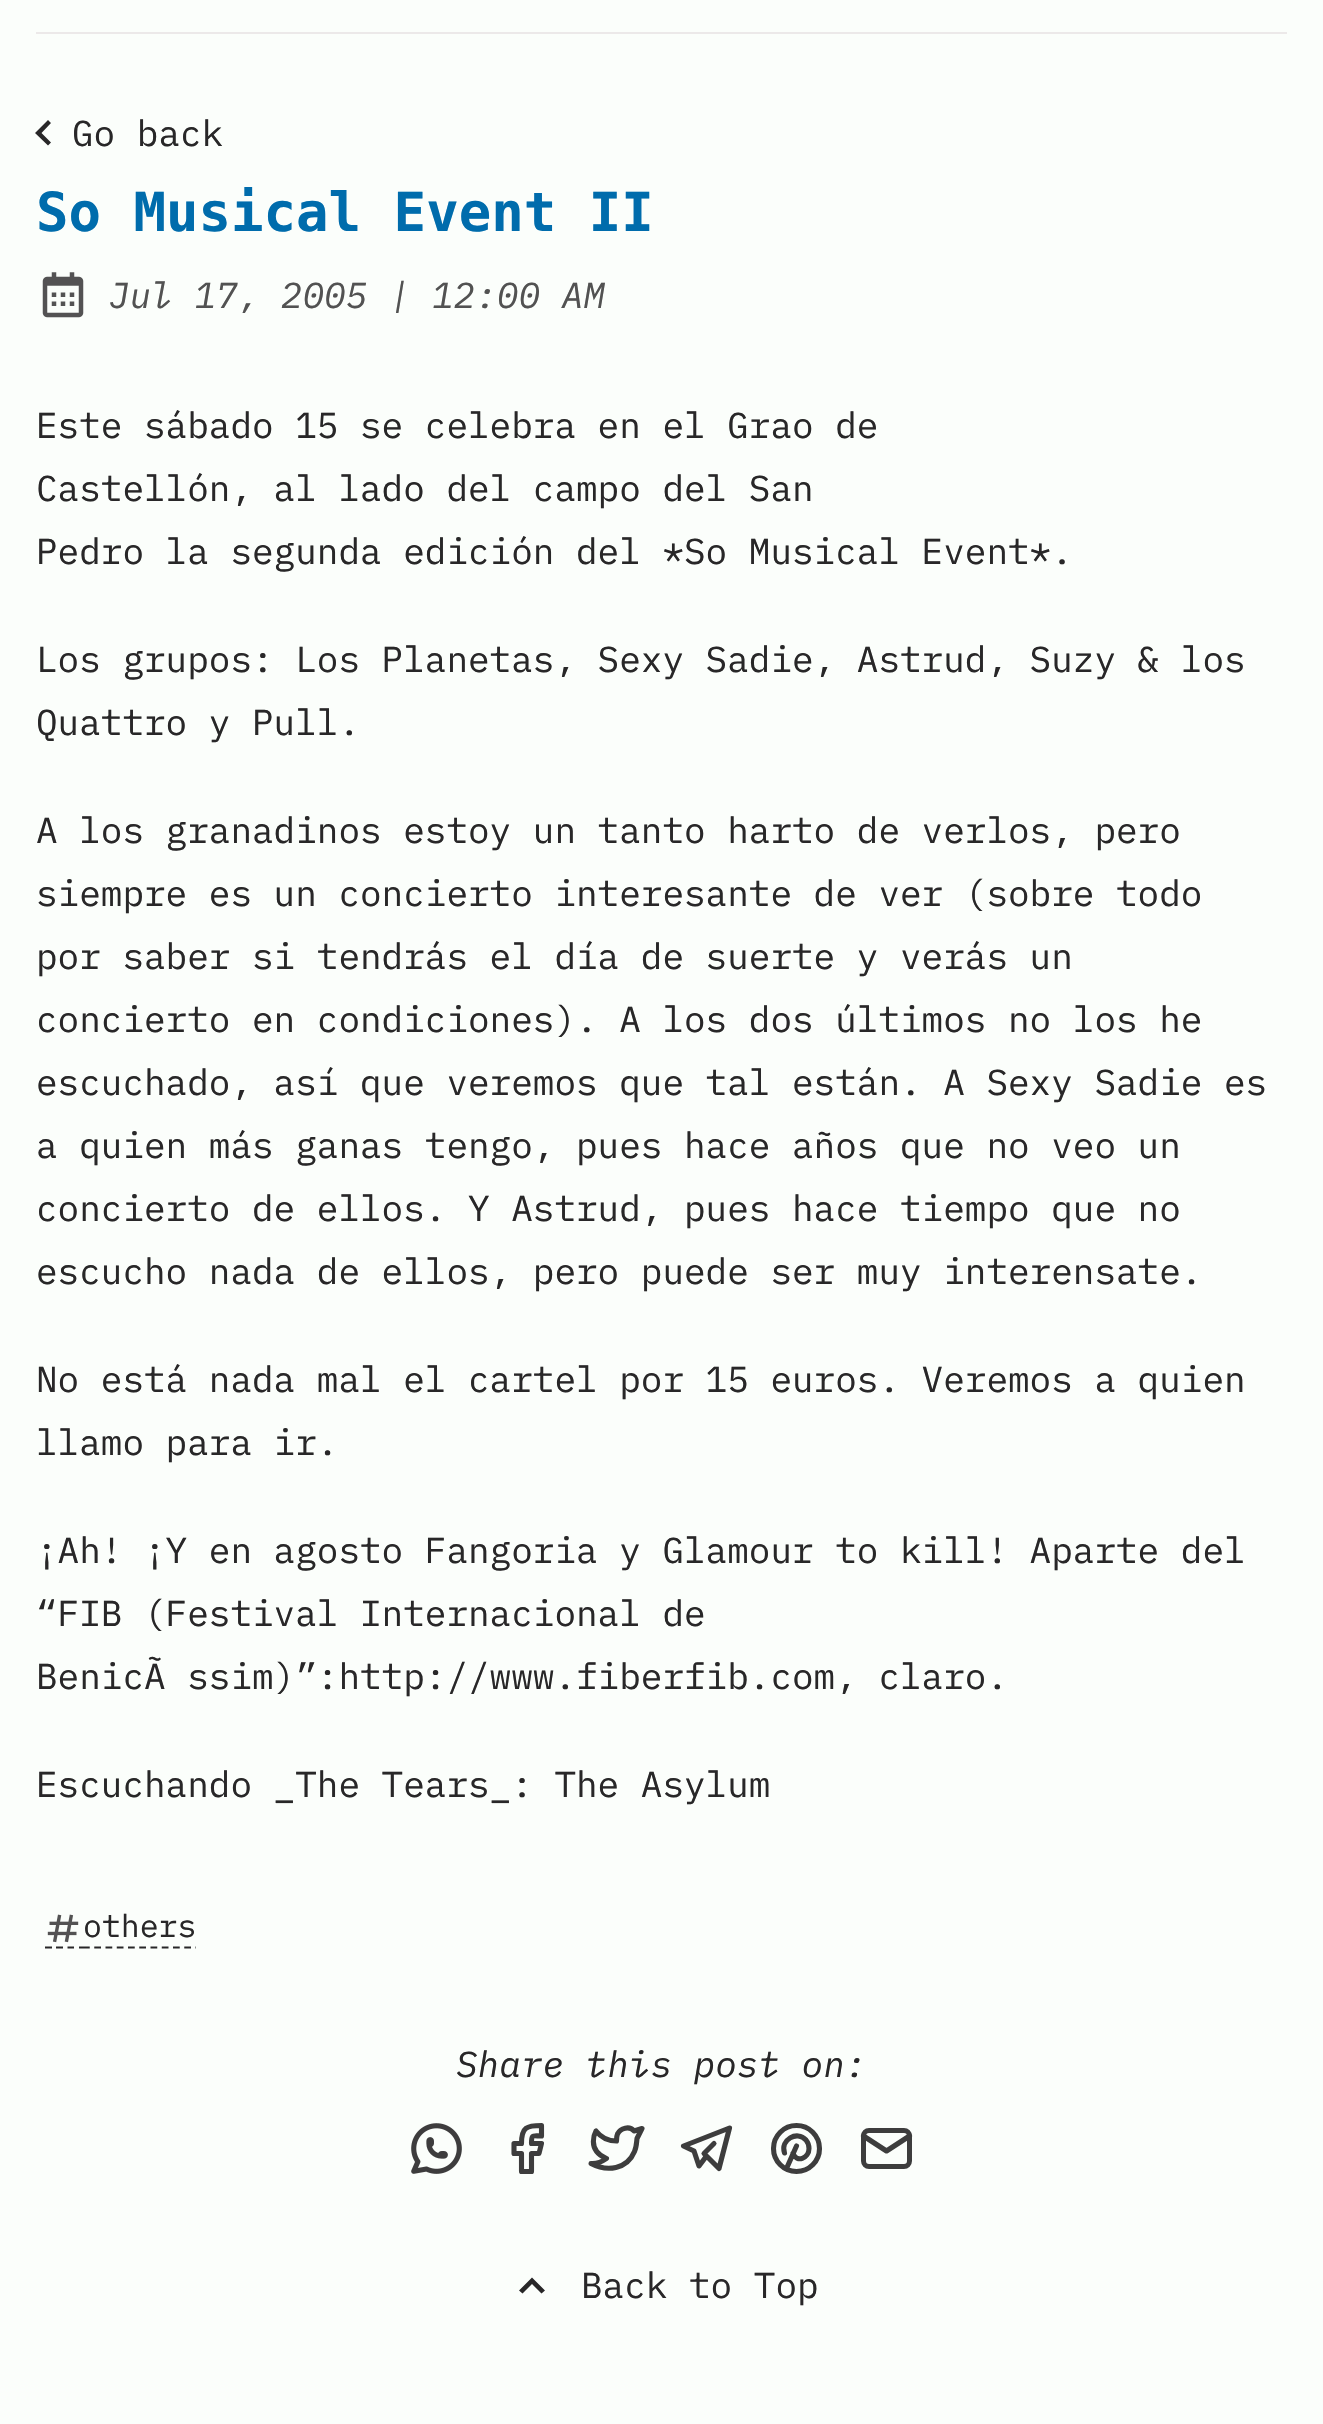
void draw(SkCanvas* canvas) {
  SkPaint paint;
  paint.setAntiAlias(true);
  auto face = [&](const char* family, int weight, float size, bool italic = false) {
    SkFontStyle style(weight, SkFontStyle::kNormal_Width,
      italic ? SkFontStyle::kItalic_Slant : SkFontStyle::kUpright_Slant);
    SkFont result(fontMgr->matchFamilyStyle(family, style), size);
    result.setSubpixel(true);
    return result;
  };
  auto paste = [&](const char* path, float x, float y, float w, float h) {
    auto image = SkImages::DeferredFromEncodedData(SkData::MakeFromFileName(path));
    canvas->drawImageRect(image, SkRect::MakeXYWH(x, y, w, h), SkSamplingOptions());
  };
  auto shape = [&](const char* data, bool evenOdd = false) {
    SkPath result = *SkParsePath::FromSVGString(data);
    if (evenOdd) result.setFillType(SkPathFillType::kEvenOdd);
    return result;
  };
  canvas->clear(0xfffbfefb);
  paint.setColor(0xffece9e9);
  canvas->drawRect(SkRect::MakeXYWH(36, 32, 1251, 2), paint);
  paint.setColor(0xff282728);
  canvas->drawPath(shape("M48 120L35 133L48 145.5L51 142.5L41.5 133L51 123Z"), paint);
  paste("img/1.png", 42, 272, 42, 46);
  paste("img/2.png", 47, 1914, 32, 29);
  paint.setStroke(true);
  paint.setStrokeWidth(2.2f);
  paint.setPathEffect(SkDashPathEffect::Make({{6.75f, 4.5f}}, 0));
  canvas->drawPath(shape("M83 1947.5H196"), paint);
  paint.setPathEffect(nullptr);
  canvas->drawPath(shape("M45 1947.5H52M56 1947.5H63M67.5 1947.5H74M79 1947.5H83"), paint);
  paste("img/3.png", 411, 2123, 51, 51);
  paint.setStrokeWidth(5.1f);
  paint.setStrokeCap(SkPaint::kRound_Cap);
  paint.setStrokeJoin(SkPaint::kRound_Join);
  paint.setColor(0xff3d3d3d);
  canvas->drawPath(shape("M514 2143.5V2153.5H521.5V2171.5H531.5V2153.5H539L541.5 2143.5H531.5C531.5 2134 532.5 2136 541.5 2136V2125.5C527 2125.5 521.5 2127 521.5 2143.5H514"), paint);
  canvas->drawPath(shape("M642 2128.5L634 2131C629.5 2125.5 620.5 2128 617.5 2134C616.5 2136 616.5 2138.5 616.5 2141C608.5 2141 601 2137.5 596 2131C596 2131 585.5 2149.5 606.5 2158.5C601.5 2162 597 2164 591 2163.5C607 2172 627 2169.5 634.5 2151.5C636.5 2147 636.5 2143 637 2138.5Z"), paint);
  canvas->drawPath(shape("M714 2143.5L704 2153.5L719 2168.5L729.5 2128L683.5 2146L694 2151L699 2166L706.5 2156"), paint);
  canvas->drawPath(shape("M786.5 2168.5L796.5 2146M793 2153.5C796.5 2163 809 2158.5 809 2148.5C809 2145.5 808 2142.5 806 2140C797 2130 780 2140 784.5 2153"), paint);
  paint.setStrokeCap(SkPaint::kButt_Cap);
  paint.setStrokeJoin(SkPaint::kMiter_Join);
  canvas->drawCircle(796.5f, 2148.5f, 23, paint);
  paint.setStrokeWidth(5);
  canvas->drawRoundRect(SkRect::MakeXYWH(863.5f, 2130.5f, 46, 36), 5.5f, 5.5f, paint);
  paint.setStrokeWidth(5.1f);
  paint.setStrokeCap(SkPaint::kRound_Cap);
  paint.setStrokeJoin(SkPaint::kRound_Join);
  canvas->drawPath(shape("M863.5 2136L886.5 2151L909.5 2136"), paint);
  paint.setStroke(false);
  paint.setColor(0xff282728);
  canvas->drawPath(shape("M545 2290.5L532 2277.5L519 2290.5L522.5 2293.5L532 2284L541.5 2293.5Z"), paint);
  auto f0 = face("IBM Plex Mono", 400, 36);
  canvas->drawString("Go back", 72, 146, f0, paint);
  auto f1 = face("DejaVu Sans Mono", 700, 54);
  paint.setColor(0xff006cac);
  canvas->drawString("So Musical Event II", 36, 231, f1, paint);
  auto f2 = face("IBM Plex Mono", 400, 36, true);
  paint.setColor(0xff525252);
  canvas->drawString("Jul 17, 2005 | 12:00 AM", 108, 308, f2, paint);
  paint.setColor(0xff282728);
  {
    const struct { const char* s; float x, y; } items[] = {
      {"Este sábado 15 se celebra en el Grao de", 36, 438},
      {"Castellón, al lado del campo del San", 36, 501},
      {"Pedro la segunda edición del *So Musical Event*.", 36, 564},
      {"Los grupos: Los Planetas, Sexy Sadie, Astrud, Suzy & los", 36, 672},
      {"Quattro y Pull.", 36, 735},
      {"A los granadinos estoy un tanto harto de verlos, pero", 36, 843},
      {"siempre es un concierto interesante de ver (sobre todo", 36, 906},
      {"por saber si tendrás el día de suerte y verás un", 36, 969},
      {"concierto en condiciones). A los dos últimos no los he", 36, 1032},
      {"escuchado, así que veremos que tal están. A Sexy Sadie es", 36, 1095},
      {"a quien más ganas tengo, pues hace años que no veo un", 36, 1158},
      {"concierto de ellos. Y Astrud, pues hace tiempo que no", 36, 1221},
      {"escucho nada de ellos, pero puede ser muy interensate.", 36, 1284},
      {"No está nada mal el cartel por 15 euros. Veremos a quien", 36, 1392},
      {"llamo para ir.", 36, 1455},
      {"¡Ah! ¡Y en agosto Fangoria y Glamour to kill! Aparte del", 36, 1563},
      {"“FIB (Festival Internacional de", 36, 1626},
      {"BenicÃ ssim)”:http://www.fiberfib.com, claro.", 36, 1689},
      {"Escuchando _The Tears_: The Asylum", 36, 1797},
    };
    for (auto [s, x, y] : items) {
      canvas->drawString(s, x, y, f0, paint);
    }
  }
  auto f3 = face("IBM Plex Mono", 400, 31.5f);
  canvas->drawString("others", 83, 1937, f3, paint);
  canvas->drawString("Share this post on:", 456, 2077, f2, paint);
  canvas->drawString("Back to Top", 581, 2298, f0, paint);
}
